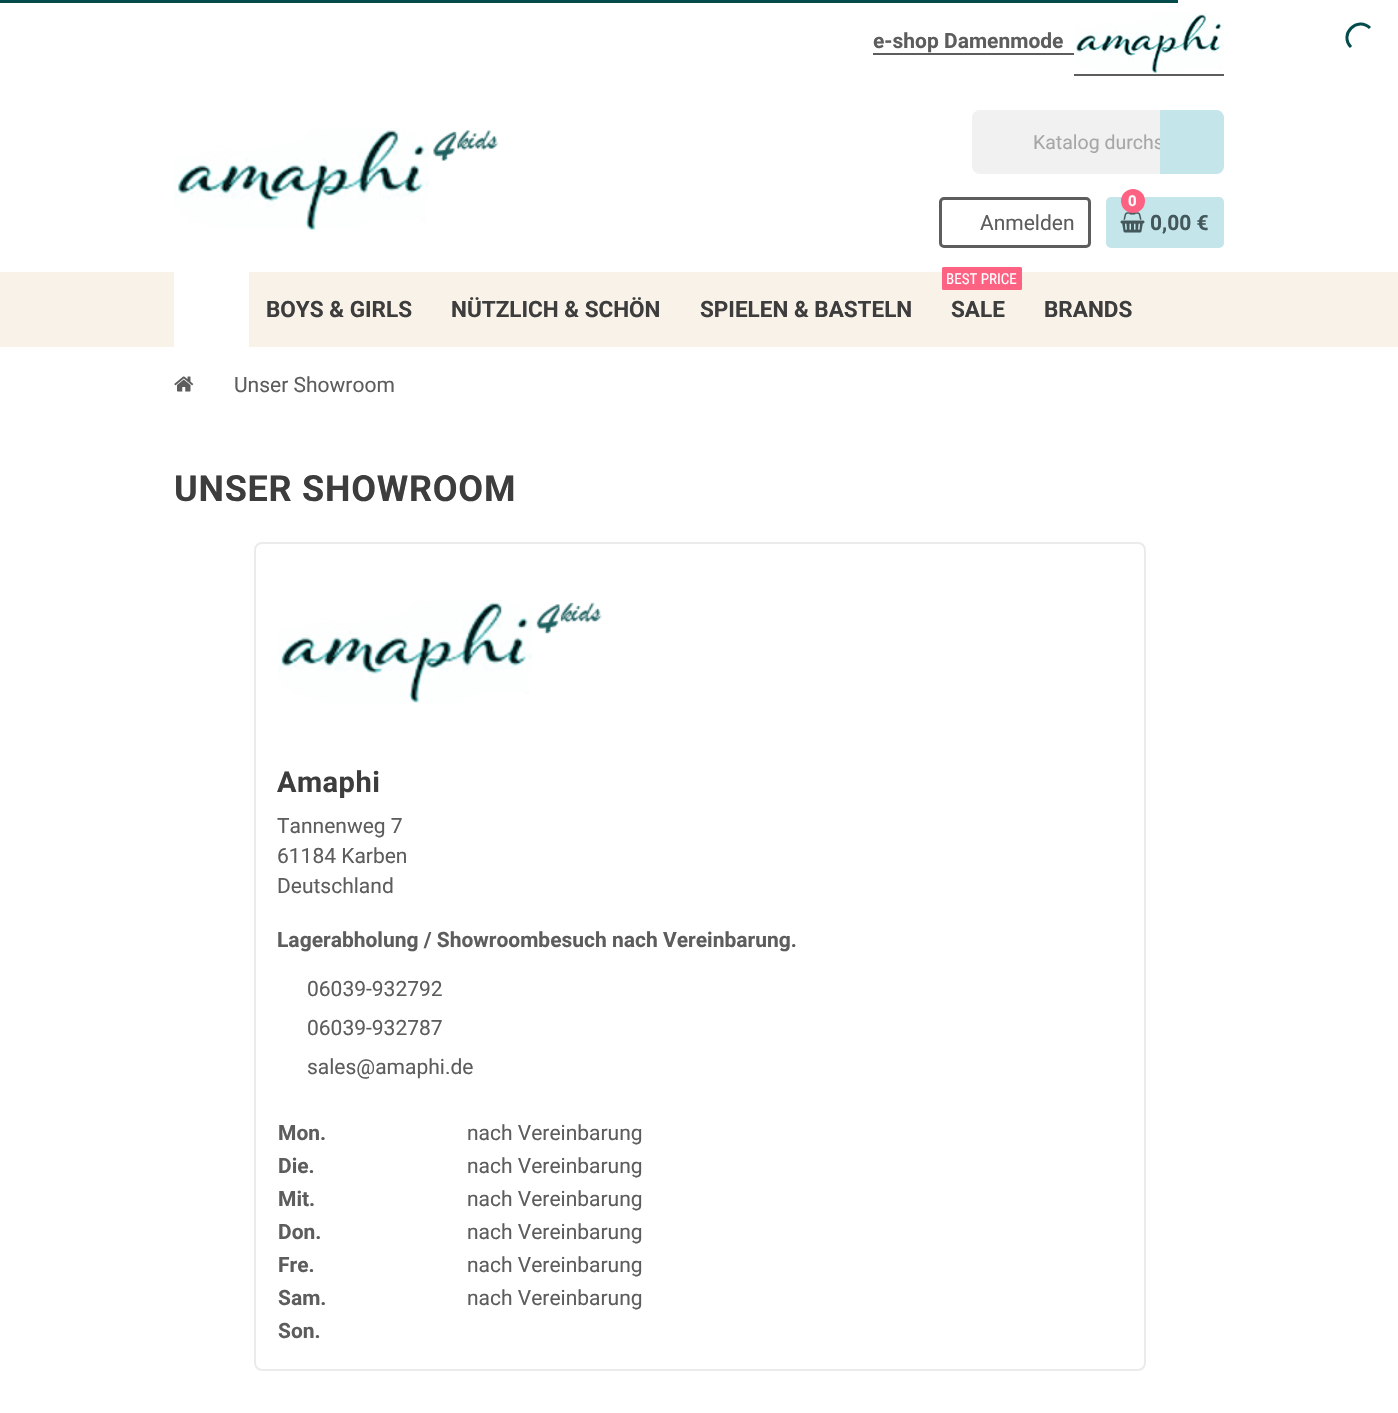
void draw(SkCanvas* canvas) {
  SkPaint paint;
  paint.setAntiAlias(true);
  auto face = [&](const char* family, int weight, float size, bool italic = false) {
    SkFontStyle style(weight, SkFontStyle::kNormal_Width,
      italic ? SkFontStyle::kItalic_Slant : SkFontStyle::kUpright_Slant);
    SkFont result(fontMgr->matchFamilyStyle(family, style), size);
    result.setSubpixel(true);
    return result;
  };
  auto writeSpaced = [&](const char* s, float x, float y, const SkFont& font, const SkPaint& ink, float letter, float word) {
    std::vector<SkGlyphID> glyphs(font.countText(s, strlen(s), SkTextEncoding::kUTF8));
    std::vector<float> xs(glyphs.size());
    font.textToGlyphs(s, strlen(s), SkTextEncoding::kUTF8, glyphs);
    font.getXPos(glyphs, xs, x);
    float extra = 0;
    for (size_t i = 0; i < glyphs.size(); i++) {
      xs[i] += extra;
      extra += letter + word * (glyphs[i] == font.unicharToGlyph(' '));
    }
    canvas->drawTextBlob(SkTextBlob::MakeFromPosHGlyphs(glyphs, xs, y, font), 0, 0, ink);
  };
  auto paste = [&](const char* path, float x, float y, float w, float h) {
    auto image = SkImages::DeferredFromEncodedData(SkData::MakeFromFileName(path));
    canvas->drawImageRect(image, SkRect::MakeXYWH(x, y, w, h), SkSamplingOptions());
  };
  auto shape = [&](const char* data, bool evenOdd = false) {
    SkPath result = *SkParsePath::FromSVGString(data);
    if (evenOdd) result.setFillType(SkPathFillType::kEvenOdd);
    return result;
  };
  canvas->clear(0xffffffff);
  paint.setColor(0xff044c4c);
  canvas->drawRect(SkRect::MakeXYWH(0, 0, 1178, 3), paint);
  paint.setStroke(true);
  paint.setStrokeWidth(3);
  canvas->drawPath(shape("M1351 47C1338.5 34.5 1357.5 15.5 1370 28"), paint);
  paint.setStroke(false);
  paint.setColor(0xff5d5d5d);
  canvas->drawRect(SkRect::MakeXYWH(873, 53, 201, 2), paint);
  canvas->drawRect(SkRect::MakeXYWH(1074, 74, 150, 2), paint);
  paste("img/1.png", 1074, 13, 150, 60);
  paste("img/2.png", 174, 128, 325, 102);
  paint.setColor(0xfff1f1f1);
  canvas->drawRoundRect(SkRect::MakeXYWH(972, 110, 251, 64), 8, 8, paint);
  paint.setStroke(true);
  paint.setColor(0xff5d5d5d);
  canvas->drawRoundRect(SkRect::MakeXYWH(940.5f, 198.5f, 149, 48), 3.5f, 3.5f, paint);
  paint.setStroke(false);
  paint.setColor(0xffc4e6eb);
  canvas->drawRoundRect(SkRect::MakeXYWH(1106, 197, 118, 51), 5, 5, paint);
  paste("img/3.png", 1120, 212, 25, 21);
  paint.setColor(0xfffd6282);
  canvas->drawCircle(1133, 201, 12, paint);
  paint.setColor(0xfff9f2e8);
  canvas->drawRect(SkRect::MakeXYWH(0, 272, 1398, 75), paint);
  paint.setColor(0xffffffff);
  canvas->drawRect(SkRect::MakeXYWH(174, 272, 75, 75), paint);
  paint.setColor(0xfffd6282);
  canvas->drawRoundRect(SkRect::MakeXYWH(942, 267, 80, 23), 1.5f, 1.5f, paint);
  paste("img/4.png", 174, 376, 20, 16);
  paint.setStroke(true);
  paint.setStrokeWidth(2);
  paint.setColor(0xffebebeb);
  canvas->drawRoundRect(SkRect::MakeXYWH(255, 543, 890, 827), 7, 7, paint);
  paste("img/5.png", 278, 600, 324, 103);
  auto f0 = face("Roboto", 700, 21);
  paint.setStroke(false);
  paint.setColor(0xff5d5d5d);
  canvas->drawString("e-shop Damenmode", 873, 48, f0, paint);
  auto f1 = face("Roboto", 400, 19.5f);
  paint.setColor(0xffa7a7a7);
  canvas->drawString("Katalog durchs", 1033, 149, f1, paint);
  paint.setColor(0xffc4e6eb);
  canvas->drawPath(shape("M1160 110H1216C1220.5 110 1224 113.5 1224 118V166C1224 170.5 1220.5 174 1216 174H1160Z"), paint);
  auto f2 = face("Roboto", 400, 21);
  paint.setColor(0xff5d5d5d);
  canvas->drawString("Anmelden", 980, 230, f2, paint);
  auto f3 = face("Roboto", 700, 15);
  paint.setColor(0xffffffff);
  canvas->drawString("0", 1128, 206, f3, paint);
  paint.setColor(0xff44585b);
  canvas->drawString("0,00 €", 1150, 230, f0, paint);
  auto f4 = face("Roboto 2", 700, 22.5f);
  paint.setColor(0xff3d3d3d);
  {
    const struct { const char* s; float x, y; } items[] = {
      {"BOYS & GIRLS", 266, 317},
      {"NÜTZLICH & SCHÖN", 451, 317},
      {"SPIELEN & BASTELN", 700, 317},
    };
    for (auto [s, x, y] : items) {
      canvas->drawString(s, x, y, f4, paint);
    }
  }
  auto f5 = face("Roboto Condensed", 400, 15);
  paint.setColor(0xffffffff);
  canvas->drawString("BEST PRICE", 946, 284, f5, paint);
  paint.setColor(0xff3d3d3d);
  canvas->drawString("SALE", 951, 317, f4, paint);
  canvas->drawString("BRANDS", 1044, 317, f4, paint);
  paint.setColor(0xff5d5d5d);
  canvas->drawString("Unser Showroom", 234, 392, f2, paint);
  auto f6 = face("Roboto 2", 700, 36);
  paint.setColor(0xff3d3d3d);
  writeSpaced("UNSER SHOWROOM", 174, 501, f6, paint, 0.75f, 0);
  auto f7 = face("Roboto 2", 700, 29);
  writeSpaced("Amaphi", 277, 792, f7, paint, 0.5f, 0);
  paint.setColor(0xff5d5d5d);
  {
    const struct { const char* s; float x, y; } items[] = {
      {"Tannenweg 7", 277, 833},
      {"61184 Karben", 277, 863},
      {"Deutschland", 277, 893},
    };
    for (auto [s, x, y] : items) {
      canvas->drawString(s, x, y, f2, paint);
    }
  }
  canvas->drawString("Lagerabholung / Showroombesuch nach Vereinbarung.", 277, 947, f0, paint);
  {
    const struct { const char* s; float x, y; } items[] = {
      {"06039-932792", 307, 996},
      {"06039-932787", 307, 1035},
      {"sales@amaphi.de", 307, 1074},
    };
    for (auto [s, x, y] : items) {
      canvas->drawString(s, x, y, f2, paint);
    }
  }
  canvas->drawString("Mon.", 278, 1140, f0, paint);
  canvas->drawString("nach Vereinbarung", 467, 1140, f2, paint);
  canvas->drawString("Die.", 278, 1173, f0, paint);
  canvas->drawString("nach Vereinbarung", 467, 1173, f2, paint);
  canvas->drawString("Mit.", 278, 1206, f0, paint);
  canvas->drawString("nach Vereinbarung", 467, 1206, f2, paint);
  canvas->drawString("Don.", 278, 1239, f0, paint);
  canvas->drawString("nach Vereinbarung", 467, 1239, f2, paint);
  canvas->drawString("Fre.", 278, 1272, f0, paint);
  canvas->drawString("nach Vereinbarung", 467, 1272, f2, paint);
  canvas->drawString("Sam.", 278, 1305, f0, paint);
  canvas->drawString("nach Vereinbarung", 467, 1305, f2, paint);
  canvas->drawString("Son.", 278, 1338, f0, paint);
}
